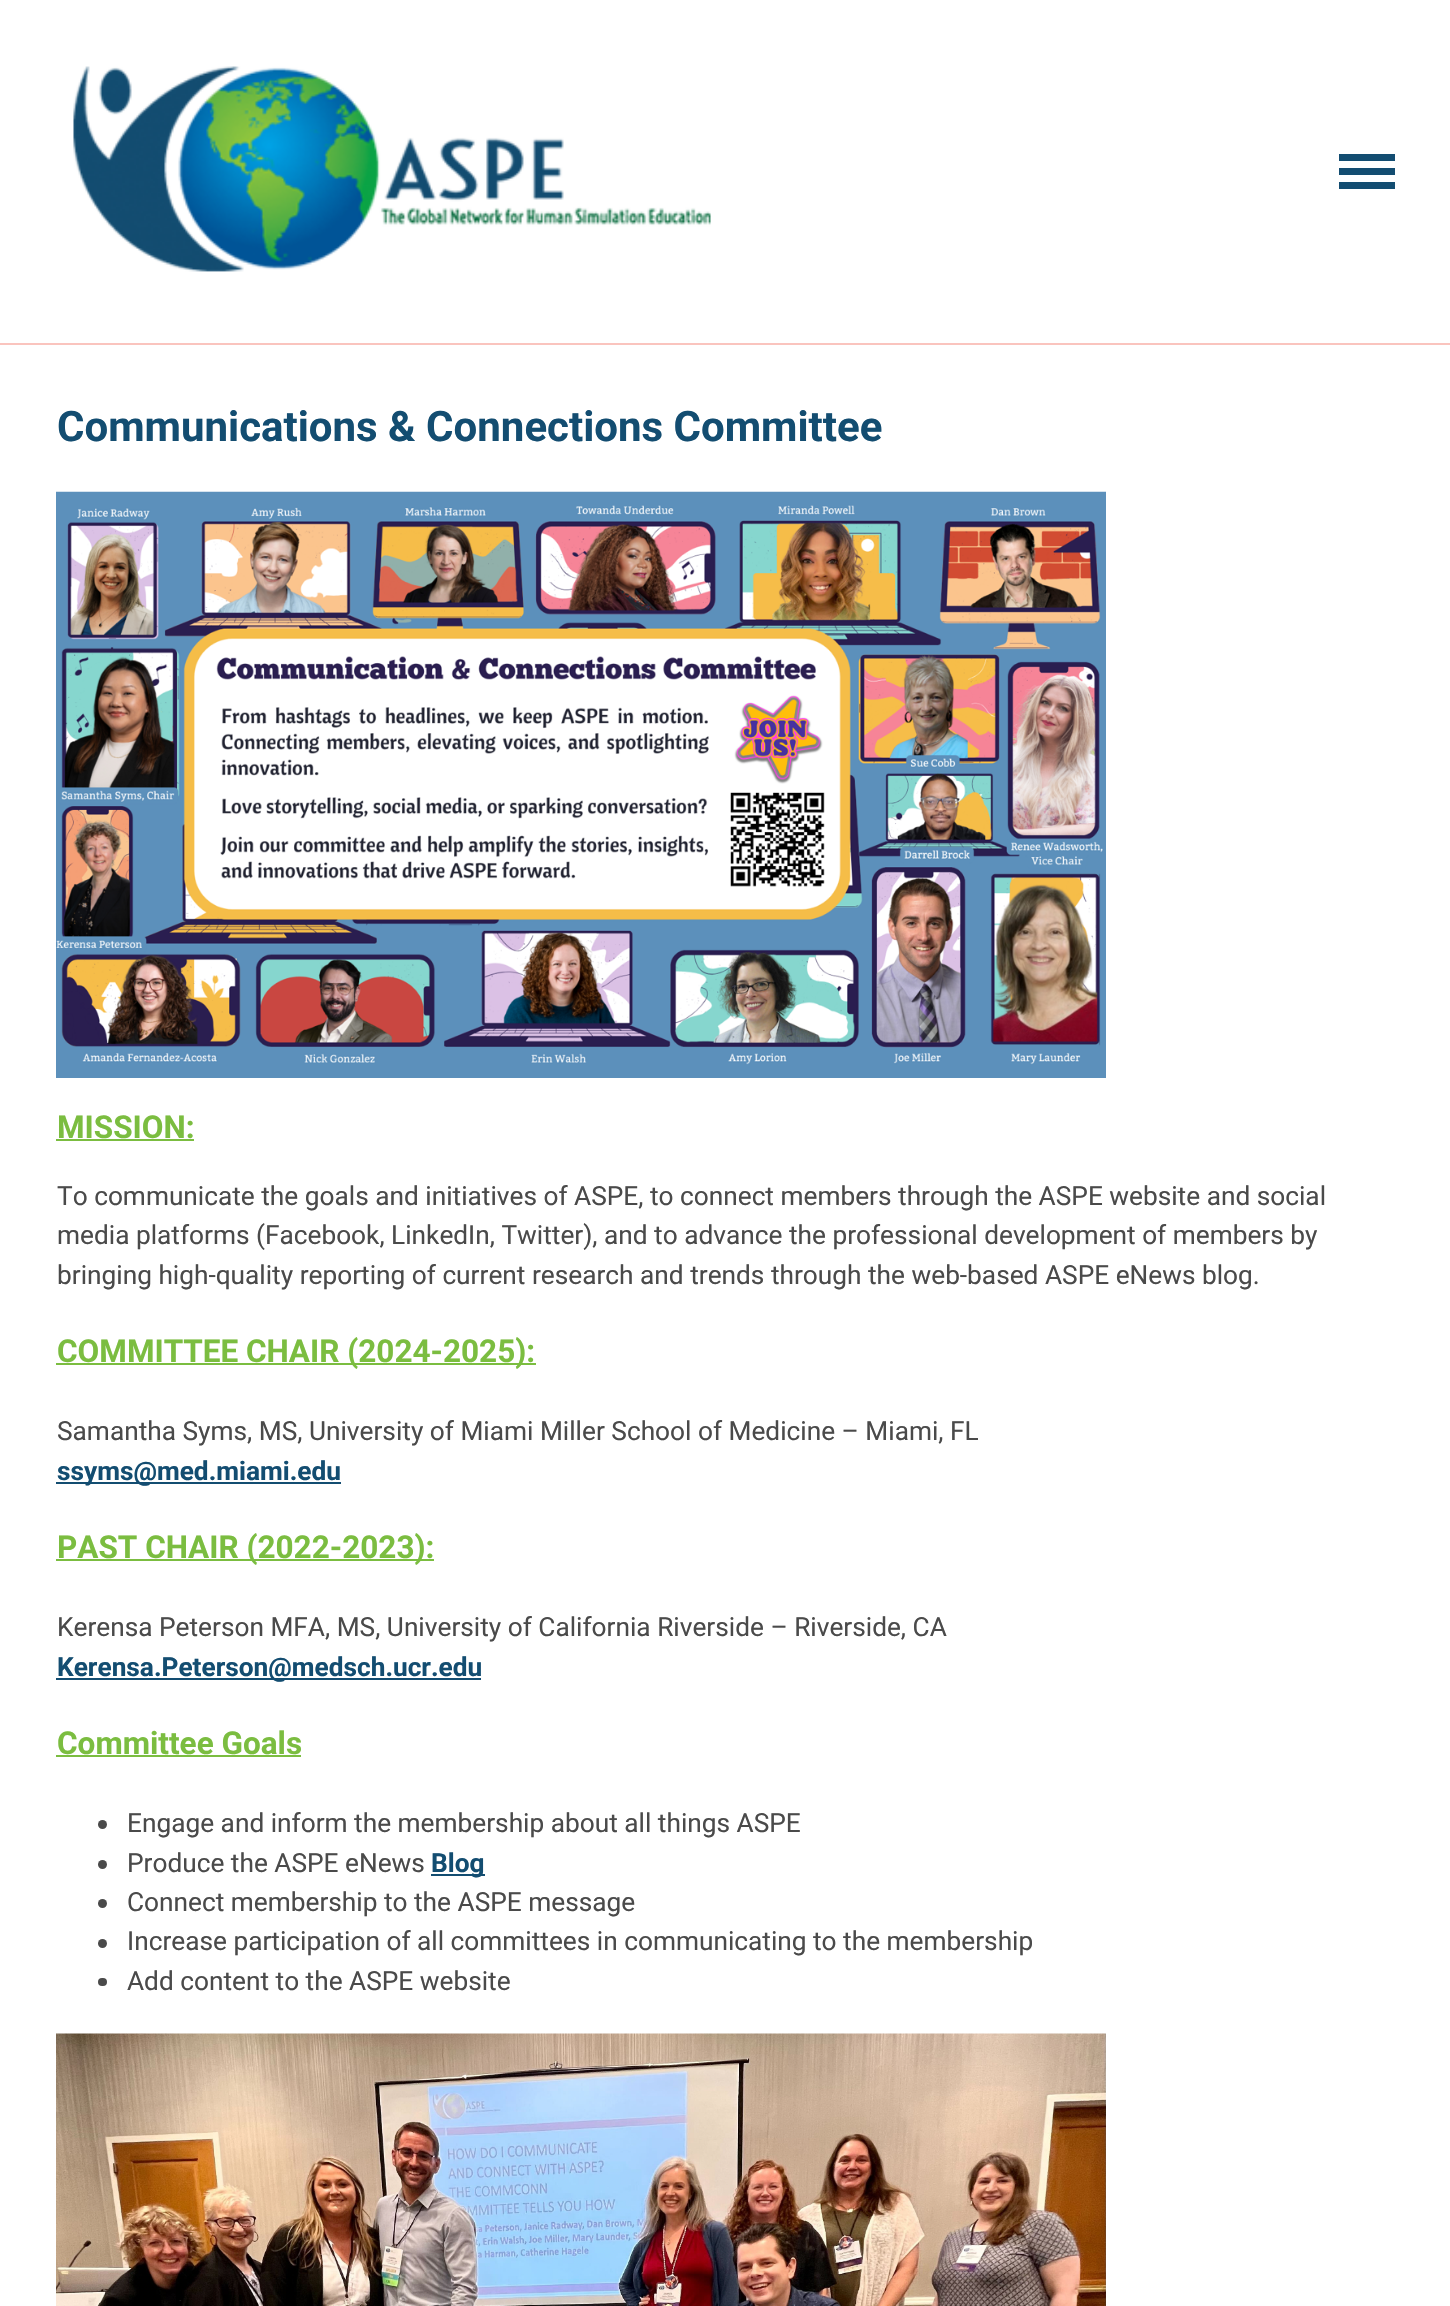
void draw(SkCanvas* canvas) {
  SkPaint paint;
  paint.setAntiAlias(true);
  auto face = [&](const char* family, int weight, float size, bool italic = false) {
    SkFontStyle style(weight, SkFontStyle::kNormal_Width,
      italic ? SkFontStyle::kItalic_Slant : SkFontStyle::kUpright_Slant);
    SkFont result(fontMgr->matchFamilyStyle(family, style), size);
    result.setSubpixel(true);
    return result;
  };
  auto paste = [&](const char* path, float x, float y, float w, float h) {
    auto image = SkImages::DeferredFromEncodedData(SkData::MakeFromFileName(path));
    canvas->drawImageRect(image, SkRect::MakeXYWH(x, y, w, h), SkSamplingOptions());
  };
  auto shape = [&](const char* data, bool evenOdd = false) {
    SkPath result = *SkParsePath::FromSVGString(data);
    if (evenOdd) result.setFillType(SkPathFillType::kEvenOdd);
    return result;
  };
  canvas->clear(0xffffffff);
  paint.setColor(0xfffac4be);
  canvas->drawRect(SkRect::MakeXYWH(0, 343, 1450, 2), paint);
  paste("img/1.png", 73, 66, 638, 206);
  paint.setColor(0xff134d71);
  canvas->drawPath(shape("M1339 154H1395V161H1339ZM1339 168H1395V175H1339ZM1339 182H1395V189H1339Z"), paint);
  paste("img/2.png", 56, 491, 1050, 587);
  {
    const struct { float x, y, w, h; SkColor color; } items[] = {
      {56, 1139, 138, 2, 0xff7bbd40},
      {56, 1363, 480, 2, 0xff7bbd40},
      {56, 1482, 285, 2, 0xff134d71},
      {56, 1559, 378, 2, 0xff7bbd40},
      {56, 1678, 425, 2, 0xff134d71},
      {56, 1755, 245, 2, 0xff7bbd40},
    };
    for (auto [x, y, w, h, color] : items) {
      paint.setColor(color);
      canvas->drawRect(SkRect::MakeXYWH(x, y, w, h), paint);
    }
  }
  paint.setColor(0xff4a4a4a);
  canvas->drawCircle(102.5f, 1824.5f, 4.5f, paint);
  canvas->drawCircle(102.5f, 1864.5f, 4.5f, paint);
  paint.setColor(0xff134d71);
  canvas->drawRect(SkRect::MakeXYWH(431, 1874, 54, 2), paint);
  paint.setColor(0xff4a4a4a);
  canvas->drawCircle(102.5f, 1903.5f, 4.5f, paint);
  canvas->drawCircle(102.5f, 1943.5f, 4.5f, paint);
  canvas->drawRoundRect(SkRect::MakeXYWH(98, 1978, 9, 8), 4, 4, paint);
  paste("img/3.png", 56, 2033, 1050, 273);
  auto f0 = face("Roboto", 700, 42);
  paint.setColor(0xff134d71);
  canvas->drawString("Communications & Connections Committee", 57, 441, f0, paint);
  auto f1 = face("Roboto", 700, 31.5f);
  paint.setColor(0xff7bbd40);
  canvas->drawString("MISSION:", 57, 1138, f1, paint);
  auto f2 = face("Roboto", 400, 26.25f);
  paint.setColor(0xff4a4a4a);
  {
    const struct { const char* s; float x, y; } items[] = {
      {"To communicate the goals and initiatives of ASPE, to connect members through the ASPE website and social", 57, 1205},
      {"media platforms (Facebook, LinkedIn, Twitter), and to advance the professional development of members by", 57, 1244},
      {"bringing high-quality reporting of current research and trends through the web-based ASPE eNews blog.", 57, 1284},
    };
    for (auto [s, x, y] : items) {
      canvas->drawString(s, x, y, f2, paint);
    }
  }
  paint.setColor(0xff7bbd40);
  canvas->drawString("COMMITTEE CHAIR (2024-2025):", 57, 1362, f1, paint);
  paint.setColor(0xff4a4a4a);
  canvas->drawString("Samantha Syms, MS, University of Miami Miller School of Medicine – Miami, FL", 57, 1440, f2, paint);
  auto f3 = face("Roboto", 700, 26.25f);
  paint.setColor(0xff134d71);
  canvas->drawString("ssyms@med.miami.edu", 57, 1480, f3, paint);
  paint.setColor(0xff7bbd40);
  canvas->drawString("PAST CHAIR (2022-2023):", 57, 1558, f1, paint);
  paint.setColor(0xff4a4a4a);
  canvas->drawString("Kerensa Peterson MFA, MS, University of California Riverside – Riverside, CA", 57, 1636, f2, paint);
  paint.setColor(0xff134d71);
  canvas->drawString("Kerensa.Peterson@medsch.ucr.edu", 57, 1676, f3, paint);
  paint.setColor(0xff7bbd40);
  canvas->drawString("Committee Goals", 57, 1754, f1, paint);
  paint.setColor(0xff4a4a4a);
  canvas->drawString("Engage and inform the membership about all things ASPE", 127, 1832, f2, paint);
  canvas->drawString("Produce the ASPE eNews", 127, 1872, f2, paint);
  paint.setColor(0xff134d71);
  canvas->drawString("Blog", 431, 1872, f3, paint);
  paint.setColor(0xff4a4a4a);
  {
    const struct { const char* s; float x, y; } items[] = {
      {"Connect membership to the ASPE message", 127, 1911},
      {"Increase participation of all committees in communicating to the membership", 127, 1950},
      {"Add content to the ASPE website", 127, 1990},
    };
    for (auto [s, x, y] : items) {
      canvas->drawString(s, x, y, f2, paint);
    }
  }
}
